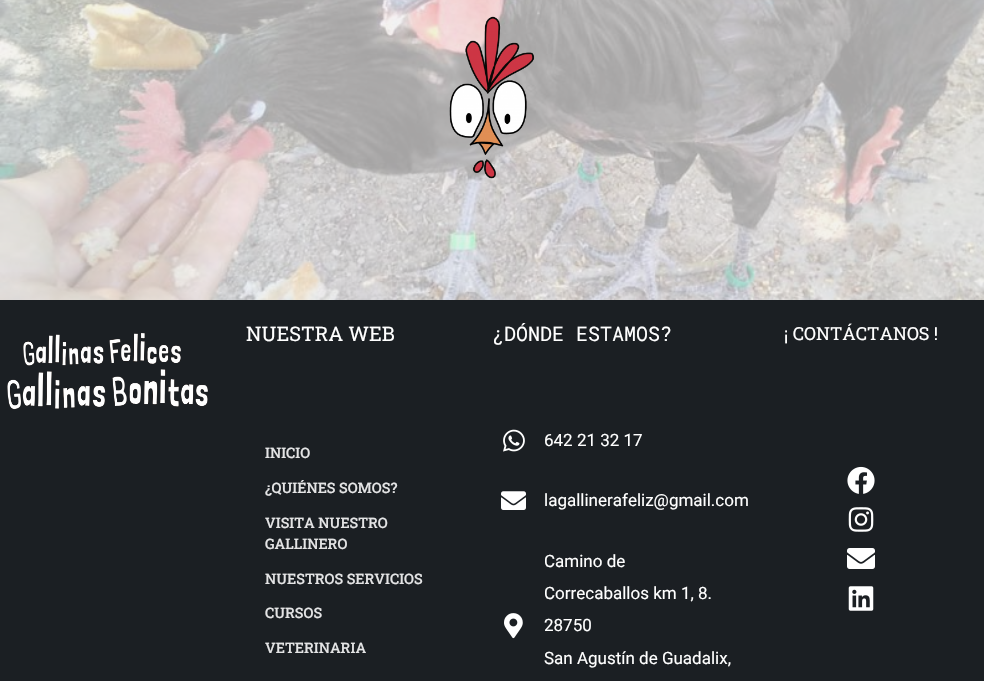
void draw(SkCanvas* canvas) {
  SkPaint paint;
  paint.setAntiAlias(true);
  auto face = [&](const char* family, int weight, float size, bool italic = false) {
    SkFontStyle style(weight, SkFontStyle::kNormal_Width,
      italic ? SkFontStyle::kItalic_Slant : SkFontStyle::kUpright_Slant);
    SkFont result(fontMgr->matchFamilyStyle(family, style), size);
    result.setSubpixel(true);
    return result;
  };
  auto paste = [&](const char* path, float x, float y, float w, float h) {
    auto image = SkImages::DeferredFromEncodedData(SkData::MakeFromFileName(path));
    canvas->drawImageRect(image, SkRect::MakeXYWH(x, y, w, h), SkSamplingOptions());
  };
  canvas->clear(0xffffffff);
  paste("img/1.png", 0, 0, 984, 300);
  paste("img/2.png", 449, 16, 86, 163);
  paint.setColor(0xff1b1f23);
  canvas->drawRect(SkRect::MakeXYWH(0, 300, 984, 381), paint);
  paste("img/3.png", 7, 333, 201, 77);
  paste("img/4.png", 503, 429, 22, 23);
  paste("img/5.png", 501, 491, 25, 19);
  paste("img/6.png", 504, 613, 19, 26);
  paste("img/7.png", 847, 466, 28, 28);
  paste("img/8.png", 848, 507, 26, 25);
  paste("img/9.png", 847, 548, 28, 21);
  paste("img/10.png", 848, 586, 26, 25);
  auto f0 = face("Roboto Slab", 400, 20);
  paint.setColor(0xffffffff);
  canvas->drawString("NUESTRA WEB", 246, 341, f0, paint);
  auto f1 = face("Roboto Slab", 500, 14.4f);
  paint.setColor(0xffe4e4e5);
  {
    const struct { const char* s; float x, y; } items[] = {
      {"INICIO", 265, 458},
      {"¿QUIÉNES SOMOS?", 265, 493},
      {"VISITA NUESTRO", 265, 528},
      {"GALLINERO", 265, 549},
      {"NUESTROS SERVICIOS", 265, 584},
      {"CURSOS", 265, 618},
      {"VETERINARIA", 265, 653},
    };
    for (auto [s, x, y] : items) {
      canvas->drawString(s, x, y, f1, paint);
    }
  }
  auto f2 = face("Roboto Mono", 400, 20);
  paint.setColor(0xffffffff);
  canvas->drawString("¿DÓNDE ESTAMOS?", 492, 341, f2, paint);
  auto f3 = face("Roboto", 400, 17);
  {
    const struct { const char* s; float x, y; } items[] = {
      {"642 21 32 17", 544, 446},
      {"lagallinerafeliz@gmail.com", 544, 506},
      {"Camino de", 544, 567},
      {"Correcaballos km 1, 8.", 544, 599},
      {"28750", 544, 631},
      {"San Agustín de Guadalix,", 544, 664},
    };
    for (auto [s, x, y] : items) {
      canvas->drawString(s, x, y, f3, paint);
    }
  }
  auto f4 = face("Roboto Slab", 400, 18);
  canvas->drawString("¡ CONTÁCTANOS !", 784, 340, f4, paint);
}
